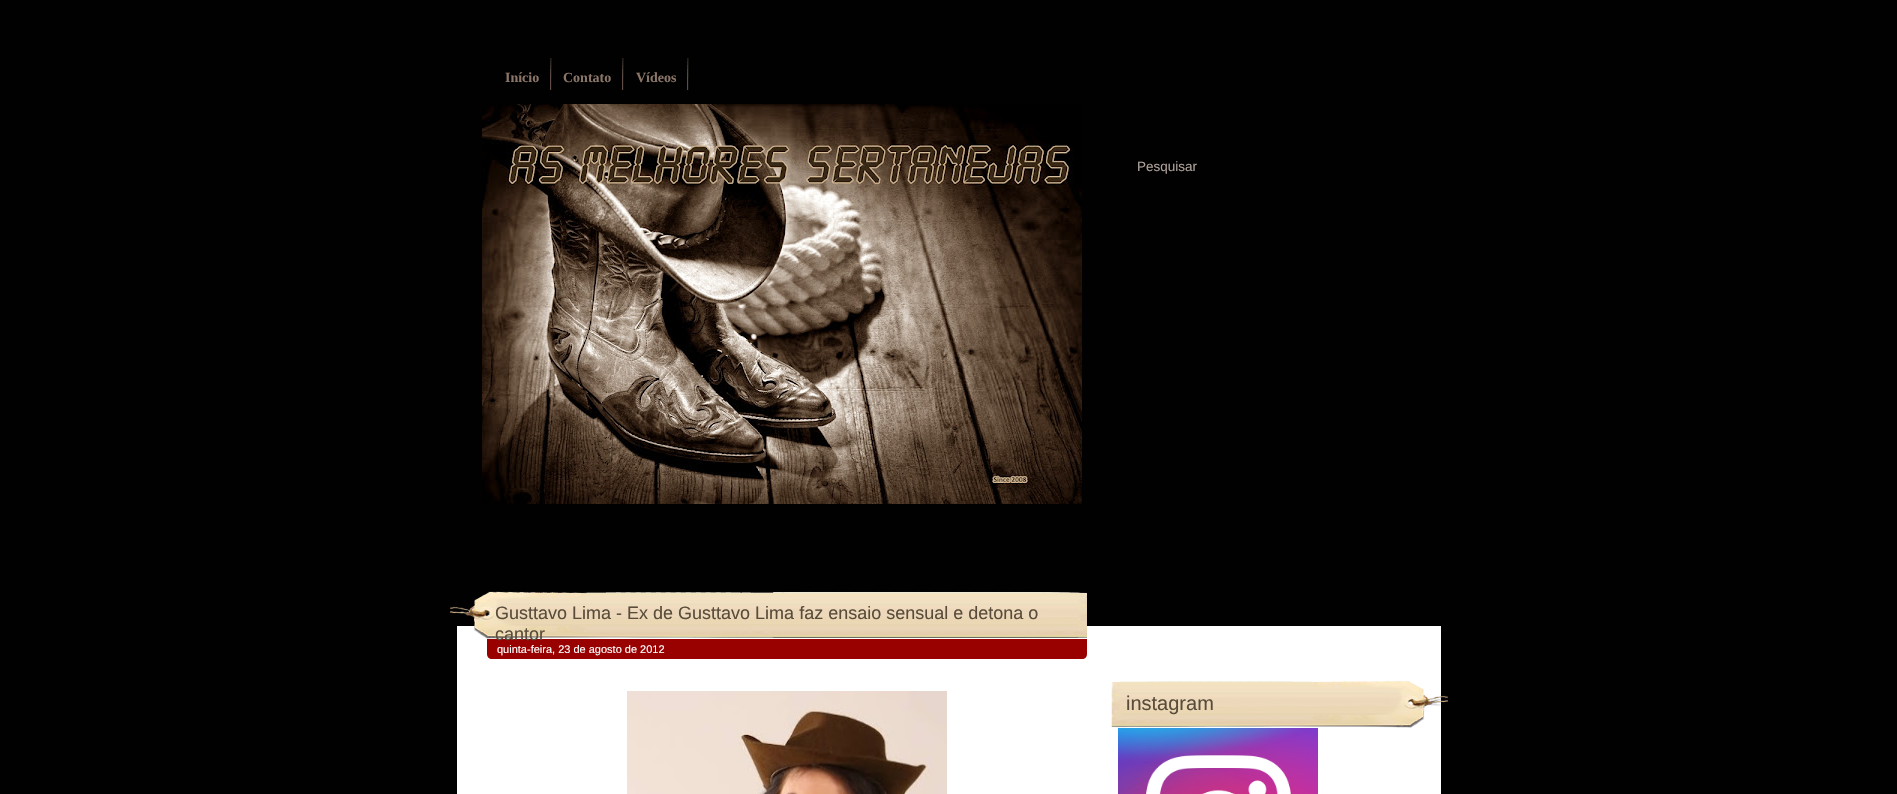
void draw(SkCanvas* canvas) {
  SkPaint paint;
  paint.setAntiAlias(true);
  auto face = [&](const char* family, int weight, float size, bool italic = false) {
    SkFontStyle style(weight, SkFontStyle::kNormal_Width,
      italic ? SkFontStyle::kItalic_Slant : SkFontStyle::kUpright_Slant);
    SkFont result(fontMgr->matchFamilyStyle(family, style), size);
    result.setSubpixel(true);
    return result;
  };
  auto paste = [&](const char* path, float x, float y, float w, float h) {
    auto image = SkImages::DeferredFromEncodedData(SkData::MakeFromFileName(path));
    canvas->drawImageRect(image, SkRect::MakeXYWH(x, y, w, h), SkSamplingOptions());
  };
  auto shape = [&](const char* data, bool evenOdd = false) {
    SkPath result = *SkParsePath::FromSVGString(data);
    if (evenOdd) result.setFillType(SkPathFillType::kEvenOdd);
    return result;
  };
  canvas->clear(0xff010101);
  paste("img/1.png", 550, 58, 2, 32);
  paste("img/1.png", 622, 58, 2, 32);
  paste("img/1.png", 687, 58, 2, 32);
  paste("img/2.png", 482, 104, 600, 400);
  paint.setColor(0xffffffff);
  canvas->drawRect(SkRect::MakeXYWH(457, 626, 984, 168), paint);
  paste("img/3.png", 450, 591, 637, 48);
  paint.setColor(0xff990000);
  canvas->drawPath(shape("M487 639H1087V654C1087 657 1085 659 1082 659H492C489 659 487 657 487 654Z"), paint);
  paste("img/4.png", 627, 691, 320, 103);
  paste("img/5.png", 1111, 680, 337, 48);
  paste("img/6.png", 1118, 728, 200, 66);
  auto f0 = face("Liberation Serif", 700, 14);
  paint.setColor(0xff8a7568);
  {
    const struct { const char* s; float x, y; } items[] = {
      {"Início", 505, 82},
      {"Contato", 563, 82},
      {"Vídeos", 636, 82},
    };
    for (auto [s, x, y] : items) {
      canvas->drawString(s, x, y, f0, paint);
    }
  }
  auto f1 = face("Liberation Sans", 400, 13.5f);
  paint.setColor(0xffada19a);
  canvas->drawString("Pesquisar", 1137, 171, f1, paint);
  auto f2 = face("Liberation Sans", 400, 18);
  paint.setColor(0xff594c3a);
  canvas->drawString("Gusttavo Lima - Ex de Gusttavo Lima faz ensaio sensual e detona o", 495, 619, f2, paint);
  canvas->drawString("cantor", 495, 640, f2, paint);
  auto f3 = face("Liberation Sans", 400, 11);
  paint.setColor(0xffffffff);
  canvas->drawString("quinta-feira, 23 de agosto de 2012", 497, 653, f3, paint);
  auto f4 = face("Liberation Sans", 400, 20);
  paint.setColor(0xff594c3a);
  canvas->drawString("instagram", 1126, 710, f4, paint);
}
